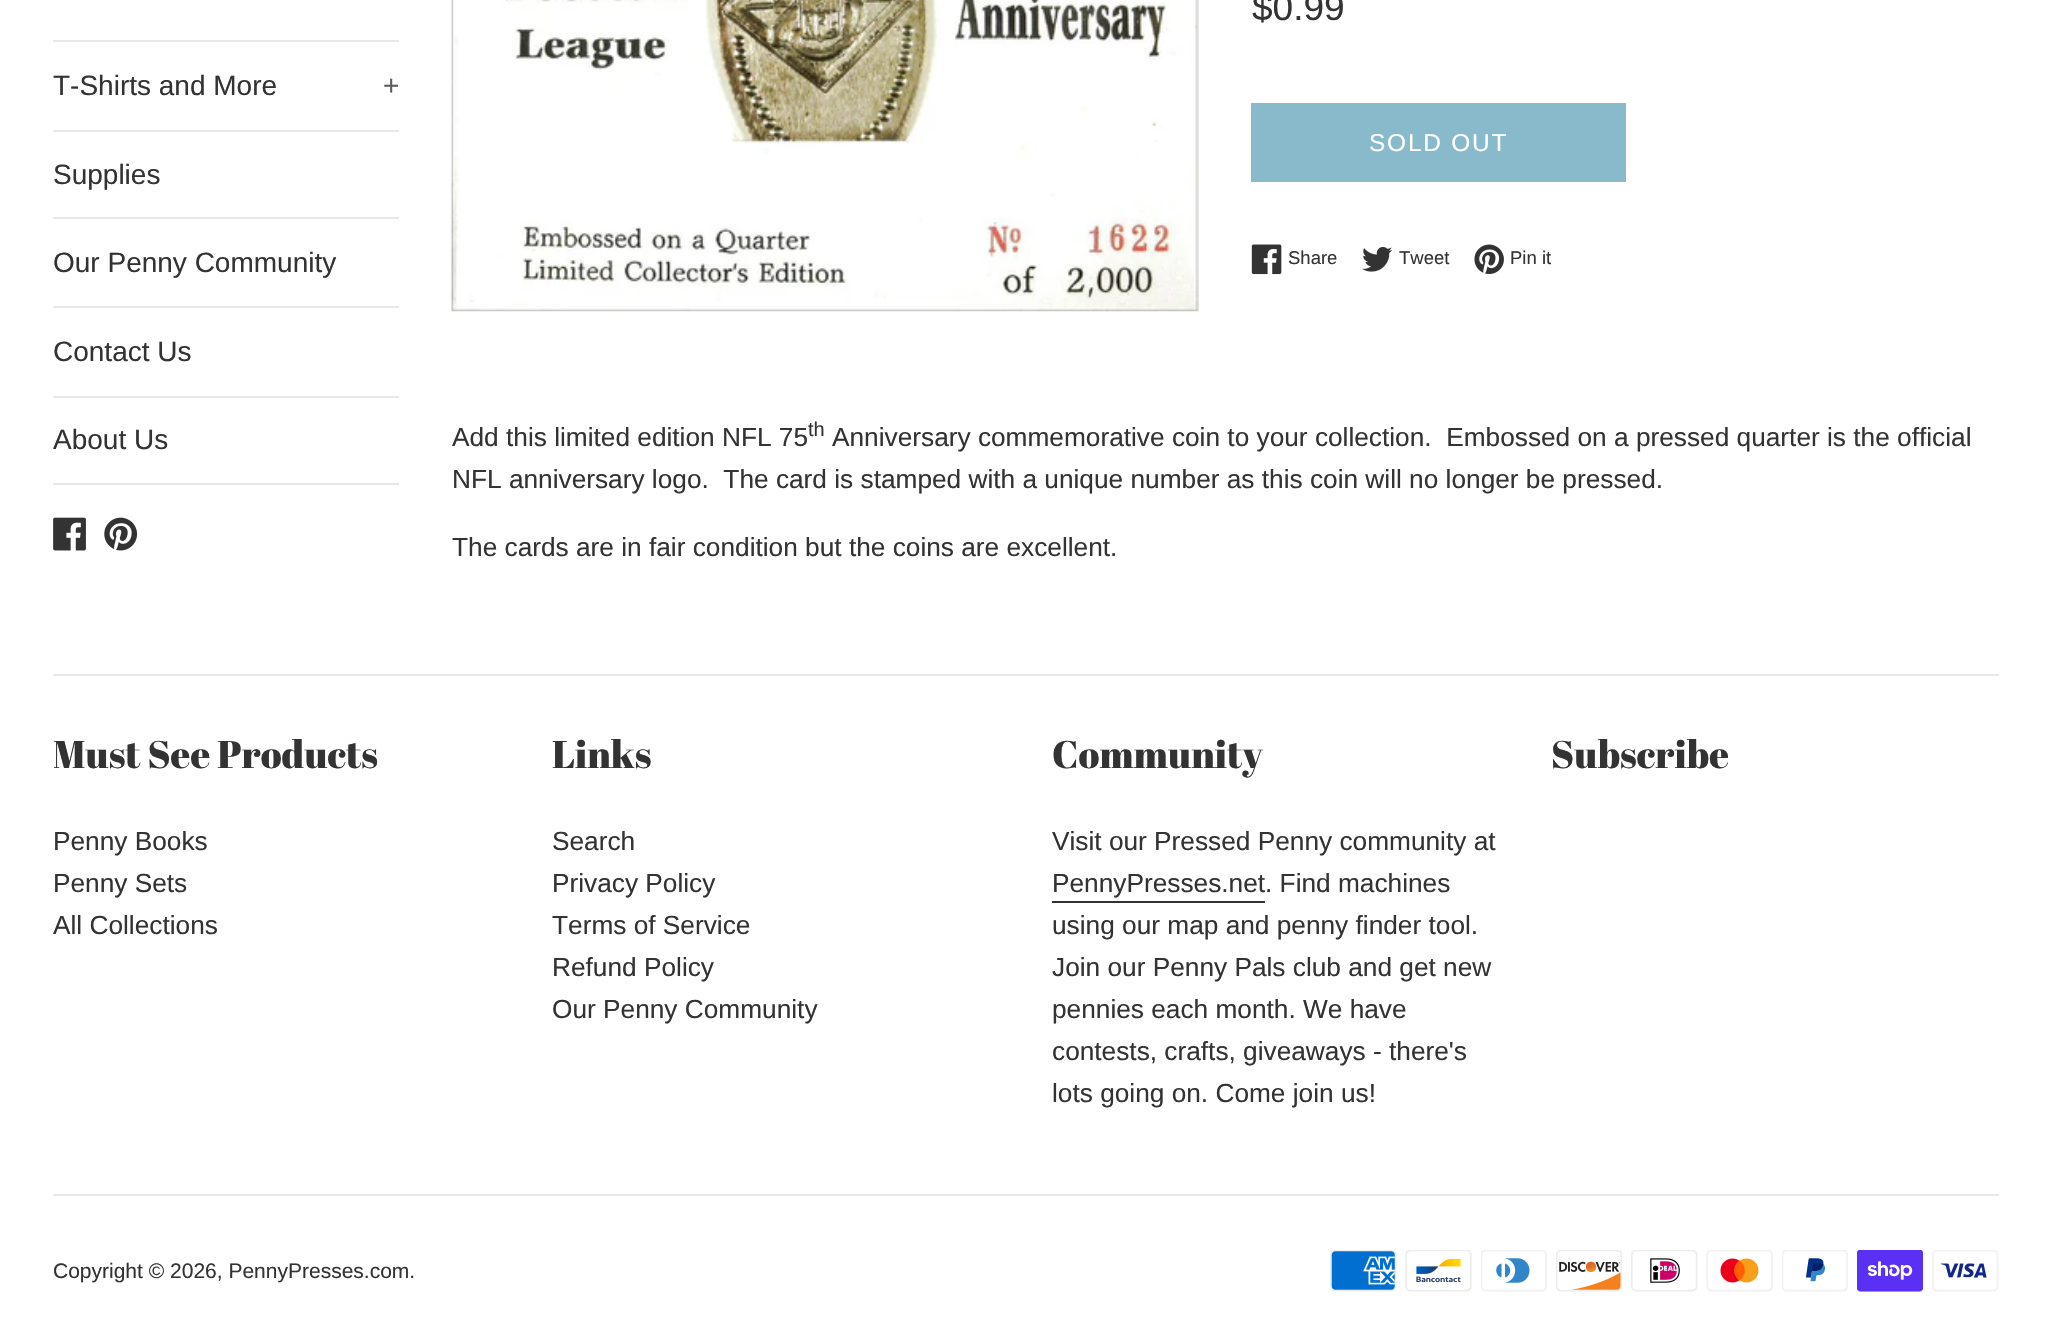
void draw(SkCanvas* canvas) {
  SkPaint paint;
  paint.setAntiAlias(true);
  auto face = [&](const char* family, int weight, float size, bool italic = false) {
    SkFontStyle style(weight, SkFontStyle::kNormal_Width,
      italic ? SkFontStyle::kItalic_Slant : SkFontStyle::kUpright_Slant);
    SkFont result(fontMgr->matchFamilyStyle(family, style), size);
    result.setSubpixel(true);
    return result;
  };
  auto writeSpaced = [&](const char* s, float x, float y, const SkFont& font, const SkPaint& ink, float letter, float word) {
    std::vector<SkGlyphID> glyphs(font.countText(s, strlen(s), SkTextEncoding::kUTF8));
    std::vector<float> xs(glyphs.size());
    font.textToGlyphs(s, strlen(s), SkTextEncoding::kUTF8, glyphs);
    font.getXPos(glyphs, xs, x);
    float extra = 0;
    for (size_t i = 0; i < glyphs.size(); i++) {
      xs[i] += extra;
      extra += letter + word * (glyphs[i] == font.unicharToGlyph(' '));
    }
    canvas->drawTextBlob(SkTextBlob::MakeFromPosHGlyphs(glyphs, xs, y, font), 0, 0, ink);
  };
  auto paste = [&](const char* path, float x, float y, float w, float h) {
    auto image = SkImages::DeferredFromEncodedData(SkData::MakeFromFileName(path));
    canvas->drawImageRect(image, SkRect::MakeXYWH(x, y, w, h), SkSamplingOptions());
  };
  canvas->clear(0xffffffff);
  {
    const struct { float x, y, w, h; SkColor color; } items[] = {
      {53, 40, 346, 2, 0xffe8e8e8},
      {53, 130, 346, 2, 0xffe8e8e8},
      {53, 217, 346, 2, 0xffe8e8e8},
      {53, 306, 346, 2, 0xffe8e8e8},
      {53, 396, 346, 2, 0xffe8e8e8},
      {53, 483, 346, 2, 0xffe8e8e8},
    };
    for (auto [x, y, w, h, color] : items) {
      paint.setColor(color);
      canvas->drawRect(SkRect::MakeXYWH(x, y, w, h), paint);
    }
  }
  paste("img/1.png", 53, 517, 33, 34);
  paste("img/2.png", 104, 517, 34, 34);
  paste("img/3.png", 451, 0, 748, 312);
  paint.setColor(0xff88bacc);
  canvas->drawRect(SkRect::MakeXYWH(1251, 103, 375, 79), paint);
  paste("img/4.png", 1251, 244, 31, 31);
  paste("img/5.png", 1362, 247, 31, 25);
  paste("img/6.png", 1474, 244, 30, 30);
  {
    const struct { float x, y, w, h; SkColor color; } items[] = {
      {53, 674, 1946, 2, 0xffe8e8e8},
      {1052, 901, 213, 2, 0xff333333},
      {53, 1194, 1946, 2, 0xffe8e8e8},
    };
    for (auto [x, y, w, h, color] : items) {
      paint.setColor(color);
      canvas->drawRect(SkRect::MakeXYWH(x, y, w, h), paint);
    }
  }
  paste("img/7.png", 1330, 1250, 67, 42);
  paste("img/8.png", 1405, 1250, 67, 42);
  paste("img/9.png", 1481, 1250, 66, 42);
  paste("img/10.png", 1556, 1250, 66, 42);
  paste("img/11.png", 1631, 1250, 67, 42);
  paste("img/12.png", 1706, 1250, 67, 42);
  paste("img/13.png", 1782, 1250, 66, 42);
  paste("img/14.png", 1857, 1250, 66, 42);
  paste("img/15.png", 1932, 1250, 67, 42);
  auto f0 = face("Liberation Sans", 400, 28);
  paint.setColor(0xff333333);
  canvas->drawString("T-Shirts and More", 53, 95, f0, paint);
  paint.setColor(0xff5c5c5c);
  canvas->drawString("+", 383, 95, f0, paint);
  paint.setColor(0xff333333);
  {
    const struct { const char* s; float x, y; } items[] = {
      {"Supplies", 53, 184},
      {"Our Penny Community", 53, 272},
      {"Contact Us", 53, 361},
      {"About Us", 53, 449},
    };
    for (auto [s, x, y] : items) {
      canvas->drawString(s, x, y, f0, paint);
    }
  }
  auto f1 = face("Liberation Sans", 400, 37);
  canvas->drawString("$0.99", 1252, 20, f1, paint);
  auto f2 = face("Liberation Sans", 400, 24.5f);
  paint.setColor(0xffffffff);
  writeSpaced("SOLD OUT", 1369, 151, f2, paint, 1.75f, 0);
  auto f3 = face("Liberation Sans", 400, 18.5f);
  paint.setColor(0xff333333);
  {
    const struct { const char* s; float x, y; } items[] = {
      {"Share", 1288, 264},
      {"Tweet", 1399, 264},
      {"Pin it", 1510, 264},
    };
    for (auto [s, x, y] : items) {
      canvas->drawString(s, x, y, f3, paint);
    }
  }
  auto f4 = face("Liberation Sans", 400, 26.25f);
  canvas->drawString("Add this limited edition NFL 75", 452, 446, f4, paint);
  auto f5 = face("Liberation Sans", 400, 20);
  canvas->drawString("th", 808, 436, f5, paint);
  {
    const struct { const char* s; float x, y; } items[] = {
      {"Anniversary commemorative coin to your collection.  Embossed on a pressed quarter is the official", 832, 446},
      {"NFL anniversary logo.  The card is stamped with a unique number as this coin will no longer be pressed.", 452, 488},
      {"The cards are in fair condition but the coins are excellent.", 452, 556},
    };
    for (auto [s, x, y] : items) {
      canvas->drawString(s, x, y, f4, paint);
    }
  }
  auto f6 = face("Abril Fatface", 400, 38.5f);
  canvas->drawString("Must See Products", 53, 768, f6, paint);
  {
    const struct { const char* s; float x, y; } items[] = {
      {"Penny Books", 53, 850},
      {"Penny Sets", 53, 892},
      {"All Collections", 53, 934},
    };
    for (auto [s, x, y] : items) {
      canvas->drawString(s, x, y, f4, paint);
    }
  }
  canvas->drawString("Links", 552, 768, f6, paint);
  {
    const struct { const char* s; float x, y; } items[] = {
      {"Search", 552, 850},
      {"Privacy Policy", 552, 892},
      {"Terms of Service", 552, 934},
      {"Refund Policy", 552, 976},
      {"Our Penny Community", 552, 1018},
    };
    for (auto [s, x, y] : items) {
      canvas->drawString(s, x, y, f4, paint);
    }
  }
  canvas->drawString("Community", 1052, 768, f6, paint);
  {
    const struct { const char* s; float x, y; } items[] = {
      {"Visit our Pressed Penny community at", 1052, 850},
      {"PennyPresses.net. Find machines", 1052, 892},
      {"using our map and penny finder tool.", 1052, 934},
      {"Join our Penny Pals club and get new", 1052, 976},
      {"pennies each month. We have", 1052, 1018},
      {"contests, crafts, giveaways - there's", 1052, 1060},
      {"lots going on. Come join us!", 1052, 1102},
    };
    for (auto [s, x, y] : items) {
      canvas->drawString(s, x, y, f4, paint);
    }
  }
  canvas->drawString("Subscribe", 1551, 768, f6, paint);
  auto f7 = face("Liberation Sans", 400, 21);
  canvas->drawString("Copyright © 2026, PennyPresses.com.", 53, 1278, f7, paint);
}
